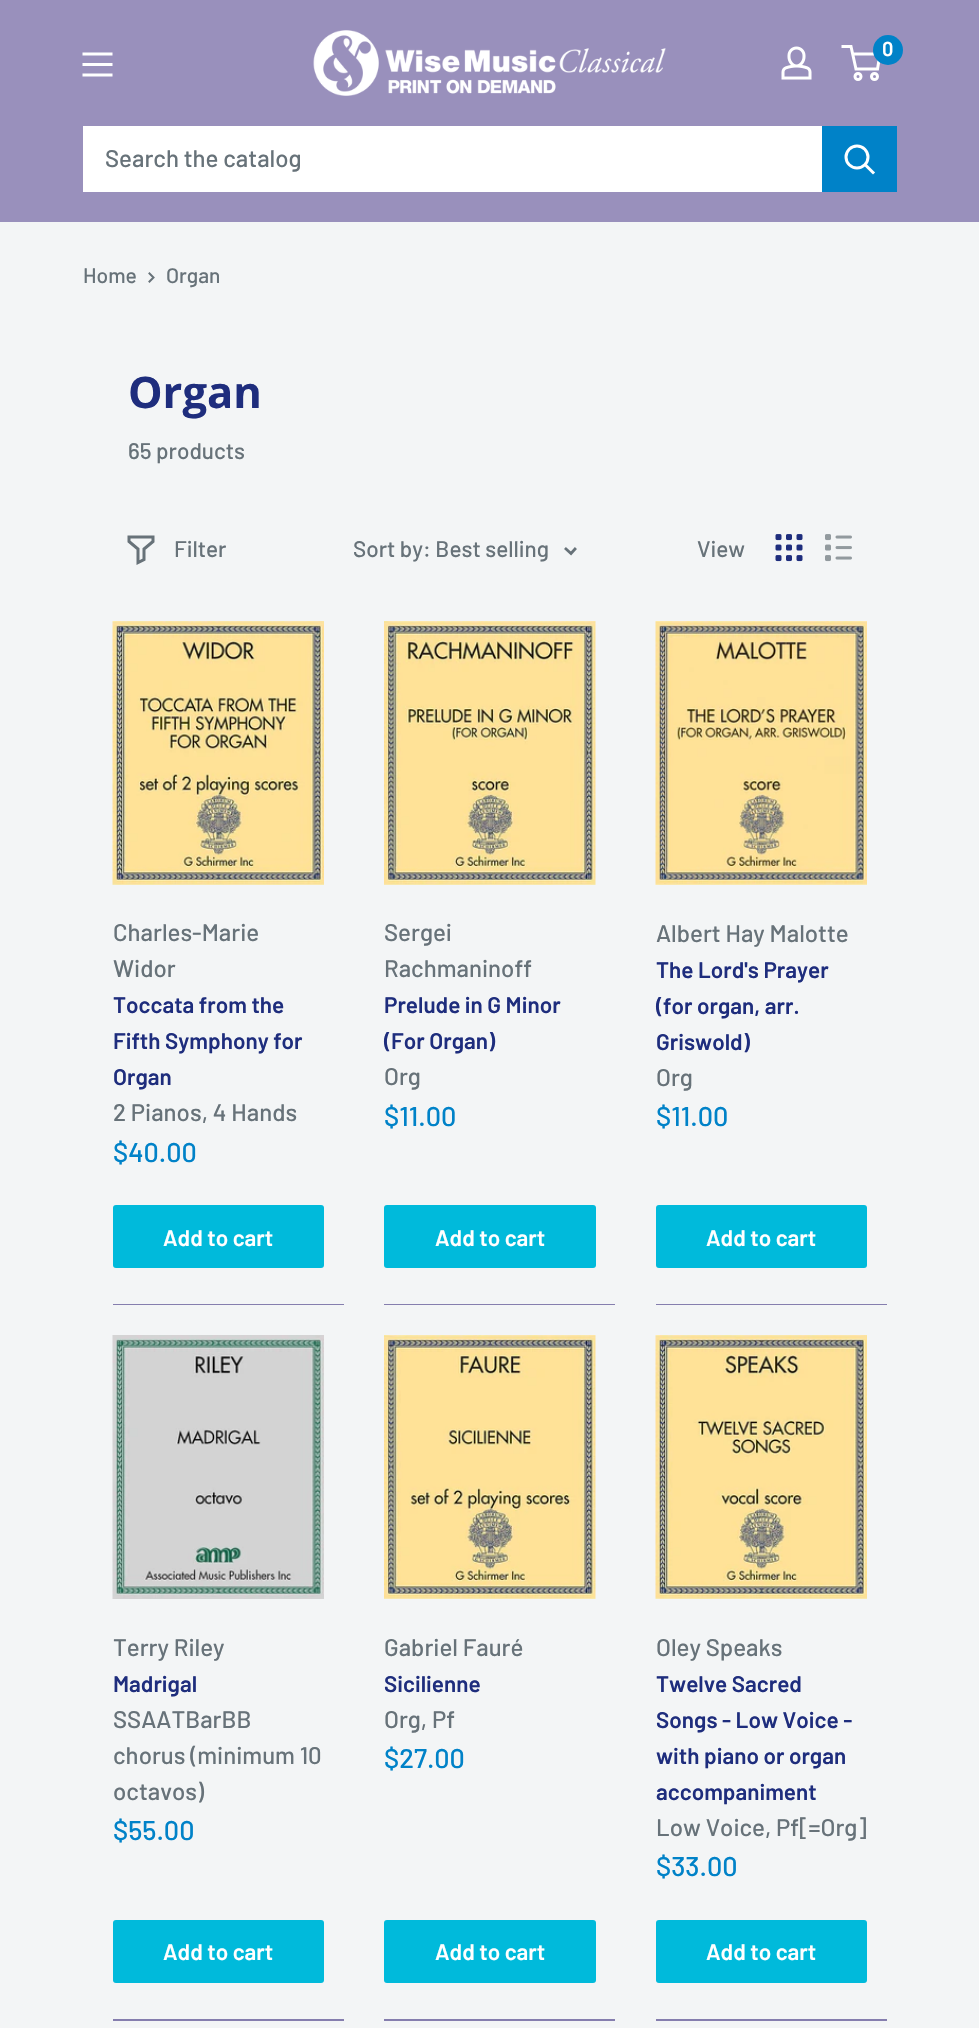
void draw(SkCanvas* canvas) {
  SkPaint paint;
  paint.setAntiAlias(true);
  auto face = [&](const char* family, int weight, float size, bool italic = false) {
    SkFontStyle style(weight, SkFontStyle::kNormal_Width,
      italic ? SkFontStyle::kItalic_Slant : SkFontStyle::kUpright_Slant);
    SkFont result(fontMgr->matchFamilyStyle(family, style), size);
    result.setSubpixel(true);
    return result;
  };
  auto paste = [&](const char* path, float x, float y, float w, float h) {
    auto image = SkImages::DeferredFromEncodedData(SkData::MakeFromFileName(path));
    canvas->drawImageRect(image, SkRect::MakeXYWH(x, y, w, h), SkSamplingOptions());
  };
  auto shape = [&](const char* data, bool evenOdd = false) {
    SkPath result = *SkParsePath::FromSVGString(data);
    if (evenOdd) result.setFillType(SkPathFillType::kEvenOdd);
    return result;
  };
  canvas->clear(0xfff3f5f6);
  paint.setColor(0xff9990bc);
  canvas->drawRect(SkRect::MakeXYWH(0, 0, 979, 222), paint);
  paste("img/1.png", 313, 30, 353, 66);
  paste("img/2.png", 781, 46, 31, 34);
  paint.setStroke(true);
  paint.setStrokeWidth(3);
  paint.setColor(0xffffffff);
  canvas->drawCircle(858, 76.5f, 3, paint);
  canvas->drawCircle(874.5f, 76.5f, 3, paint);
  canvas->drawPath(shape("M852.5 54H880L877.5 69H856L851 46.5H841.5"), paint);
  paint.setStroke(false);
  paint.setColor(0xff0082c8);
  canvas->drawCircle(888, 50, 15, paint);
  paste("img/3.png", 82, 52, 31, 25);
  paint.setColor(0xffffffff);
  canvas->drawRect(SkRect::MakeXYWH(83, 126, 739, 66), paint);
  paint.setColor(0xff0082c8);
  canvas->drawRect(SkRect::MakeXYWH(822, 126, 75, 66), paint);
  paint.setStroke(true);
  paint.setStrokeCap(SkPaint::kSquare_Cap);
  paint.setColor(0xffffffff);
  canvas->drawPath(shape("M873 172.5L865.5 165"), paint);
  paint.setStrokeCap(SkPaint::kButt_Cap);
  canvas->drawCircle(857, 157, 11, paint);
  paint.setStrokeWidth(2);
  paint.setStrokeCap(SkPaint::kSquare_Cap);
  paint.setColor(0xff677279);
  canvas->drawPath(shape("M149.5 273.5L153.5 277.5L149.5 281.5"), paint);
  paint.setStrokeWidth(3);
  canvas->drawPath(shape("M153 541.5L144 549V559.5L138 562.5V549L129 541.5V537H153Z"), paint);
  paint.setStrokeWidth(2.8f);
  canvas->drawPath(shape("M575 549L571 553.5L566 549"), paint);
  paste("img/4.png", 775, 534, 28, 28);
  paste("img/5.png", 825, 534, 27, 28);
  paste("img/6.png", 112, 621, 212, 264);
  paint.setStroke(false);
  paint.setColor(0xff00badb);
  canvas->drawRoundRect(SkRect::MakeXYWH(113, 1205, 211, 63), 3, 3, paint);
  paint.setColor(0xff857eae);
  canvas->drawRect(SkRect::MakeXYWH(113, 1304, 231, 1), paint);
  paste("img/7.png", 384, 621, 212, 264);
  paint.setColor(0xff00badb);
  canvas->drawRoundRect(SkRect::MakeXYWH(384, 1205, 212, 63), 3, 3, paint);
  paint.setColor(0xff857eae);
  canvas->drawRect(SkRect::MakeXYWH(384, 1304, 231, 1), paint);
  paste("img/8.png", 655, 621, 212, 264);
  paint.setColor(0xff00badb);
  canvas->drawRoundRect(SkRect::MakeXYWH(656, 1205, 211, 63), 3, 3, paint);
  paint.setColor(0xff857eae);
  canvas->drawRect(SkRect::MakeXYWH(656, 1304, 231, 1), paint);
  paste("img/9.png", 112, 1335, 212, 264);
  paint.setColor(0xff00badb);
  canvas->drawRoundRect(SkRect::MakeXYWH(113, 1920, 211, 63), 3, 3, paint);
  paint.setColor(0xff857eae);
  canvas->drawRect(SkRect::MakeXYWH(113, 2019, 231, 2), paint);
  paste("img/10.png", 384, 1335, 212, 264);
  paint.setColor(0xff00badb);
  canvas->drawRoundRect(SkRect::MakeXYWH(384, 1920, 212, 63), 3, 3, paint);
  paint.setColor(0xff857eae);
  canvas->drawRect(SkRect::MakeXYWH(384, 2019, 231, 2), paint);
  paste("img/11.png", 655, 1335, 212, 264);
  paint.setColor(0xff00badb);
  canvas->drawRoundRect(SkRect::MakeXYWH(656, 1920, 211, 63), 3, 3, paint);
  paint.setColor(0xff857eae);
  canvas->drawRect(SkRect::MakeXYWH(656, 2019, 231, 2), paint);
  auto f0 = face("Barlow", 600, 20);
  paint.setColor(0xffffffff);
  canvas->drawString("0", 882, 56, f0, paint);
  auto f1 = face("Barlow", 500, 24);
  paint.setColor(0xff677279);
  canvas->drawString("Search the catalog", 105, 167, f1, paint);
  auto f2 = face("Barlow", 500, 21);
  canvas->drawString("Home", 83, 283, f2, paint);
  canvas->drawString("Organ", 166, 283, f2, paint);
  auto f3 = face("Open Sans", 700, 43.5f);
  paint.setColor(0xff1e2d7d);
  canvas->drawString("Organ", 128, 408, f3, paint);
  auto f4 = face("Barlow", 500, 22.5f);
  paint.setColor(0xff677279);
  {
    const struct { const char* s; float x, y; } items[] = {
      {"65 products", 128, 459},
      {"Filter", 174, 557},
      {"Sort by: Best selling", 353, 557},
      {"View", 697, 557},
    };
    for (auto [s, x, y] : items) {
      canvas->drawString(s, x, y, f4, paint);
    }
  }
  canvas->drawString("Charles-Marie", 113, 941, f1, paint);
  canvas->drawString("Widor", 113, 977, f1, paint);
  auto f5 = face("Barlow", 600, 22.5f);
  paint.setColor(0xff1e2d7d);
  {
    const struct { const char* s; float x, y; } items[] = {
      {"Toccata from the", 113, 1013},
      {"Fifth Symphony for", 113, 1049},
      {"Organ", 113, 1085},
    };
    for (auto [s, x, y] : items) {
      canvas->drawString(s, x, y, f5, paint);
    }
  }
  paint.setColor(0xff677279);
  canvas->drawString("2 Pianos, 4 Hands", 113, 1121, f1, paint);
  auto f6 = face("Barlow", 500, 27);
  paint.setColor(0xff0082c8);
  canvas->drawString("$40.00", 113, 1162, f6, paint);
  paint.setColor(0xffffffff);
  canvas->drawString("Add to cart", 163, 1246, f5, paint);
  paint.setColor(0xff677279);
  canvas->drawString("Sergei", 384, 941, f1, paint);
  canvas->drawString("Rachmaninoff", 384, 977, f1, paint);
  paint.setColor(0xff1e2d7d);
  canvas->drawString("Prelude in G Minor", 384, 1013, f5, paint);
  canvas->drawString("(For Organ)", 384, 1049, f5, paint);
  paint.setColor(0xff677279);
  canvas->drawString("Org", 384, 1085, f1, paint);
  paint.setColor(0xff0082c8);
  canvas->drawString("$11.00", 384, 1126, f6, paint);
  paint.setColor(0xffffffff);
  canvas->drawString("Add to cart", 435, 1246, f5, paint);
  paint.setColor(0xff677279);
  canvas->drawString("Albert Hay Malotte", 656, 942, f1, paint);
  paint.setColor(0xff1e2d7d);
  {
    const struct { const char* s; float x, y; } items[] = {
      {"The Lord's Prayer", 656, 978},
      {"(for organ, arr.", 656, 1014},
      {"Griswold)", 656, 1050},
    };
    for (auto [s, x, y] : items) {
      canvas->drawString(s, x, y, f5, paint);
    }
  }
  paint.setColor(0xff677279);
  canvas->drawString("Org", 656, 1086, f1, paint);
  paint.setColor(0xff0082c8);
  canvas->drawString("$11.00", 656, 1126, f6, paint);
  paint.setColor(0xffffffff);
  canvas->drawString("Add to cart", 706, 1246, f5, paint);
  paint.setColor(0xff677279);
  canvas->drawString("Terry Riley", 113, 1656, f1, paint);
  paint.setColor(0xff1e2d7d);
  canvas->drawString("Madrigal", 113, 1692, f5, paint);
  paint.setColor(0xff677279);
  {
    const struct { const char* s; float x, y; } items[] = {
      {"SSAATBarBB", 113, 1728},
      {"chorus (minimum 10", 113, 1764},
      {"octavos)", 113, 1800},
    };
    for (auto [s, x, y] : items) {
      canvas->drawString(s, x, y, f1, paint);
    }
  }
  paint.setColor(0xff0082c8);
  canvas->drawString("$55.00", 113, 1840, f6, paint);
  paint.setColor(0xffffffff);
  canvas->drawString("Add to cart", 163, 1960, f5, paint);
  paint.setColor(0xff677279);
  canvas->drawString("Gabriel Fauré", 384, 1656, f1, paint);
  paint.setColor(0xff1e2d7d);
  canvas->drawString("Sicilienne", 384, 1692, f5, paint);
  paint.setColor(0xff677279);
  canvas->drawString("Org, Pf", 384, 1728, f1, paint);
  paint.setColor(0xff0082c8);
  canvas->drawString("$27.00", 384, 1768, f6, paint);
  paint.setColor(0xffffffff);
  canvas->drawString("Add to cart", 435, 1960, f5, paint);
  paint.setColor(0xff677279);
  canvas->drawString("Oley Speaks", 656, 1656, f1, paint);
  paint.setColor(0xff1e2d7d);
  {
    const struct { const char* s; float x, y; } items[] = {
      {"Twelve Sacred", 656, 1692},
      {"Songs - Low Voice -", 656, 1728},
      {"with piano or organ", 656, 1764},
      {"accompaniment", 656, 1800},
    };
    for (auto [s, x, y] : items) {
      canvas->drawString(s, x, y, f5, paint);
    }
  }
  paint.setColor(0xff677279);
  canvas->drawString("Low Voice, Pf[=Org]", 656, 1836, f1, paint);
  paint.setColor(0xff0082c8);
  canvas->drawString("$33.00", 656, 1876, f6, paint);
  paint.setColor(0xffffffff);
  canvas->drawString("Add to cart", 706, 1960, f5, paint);
}
